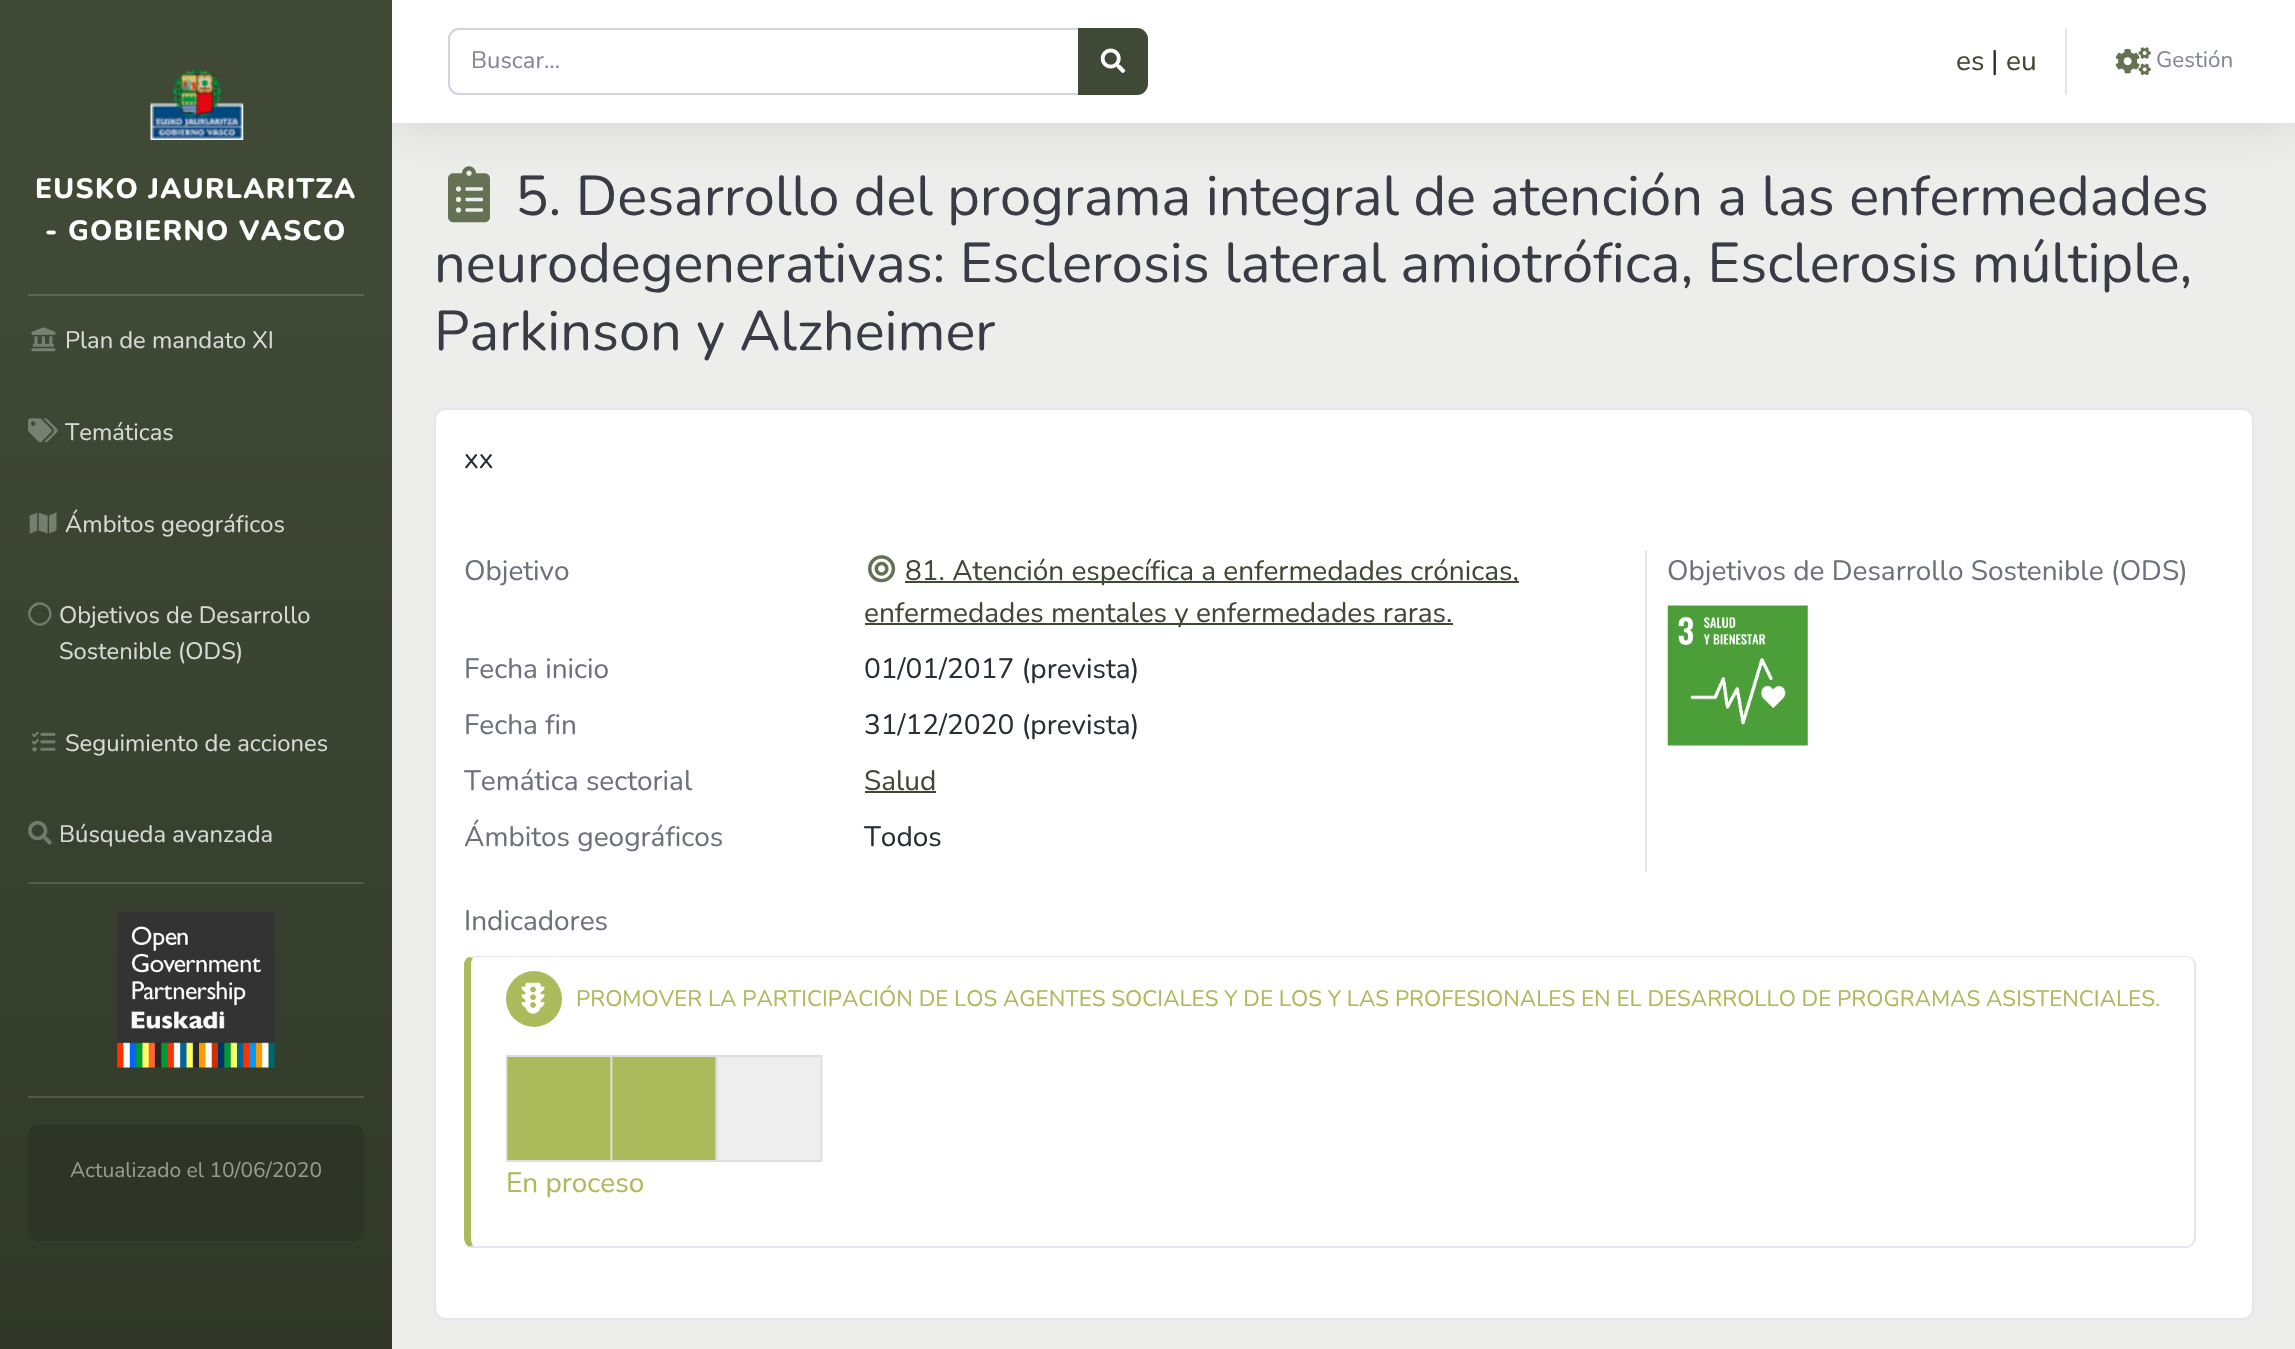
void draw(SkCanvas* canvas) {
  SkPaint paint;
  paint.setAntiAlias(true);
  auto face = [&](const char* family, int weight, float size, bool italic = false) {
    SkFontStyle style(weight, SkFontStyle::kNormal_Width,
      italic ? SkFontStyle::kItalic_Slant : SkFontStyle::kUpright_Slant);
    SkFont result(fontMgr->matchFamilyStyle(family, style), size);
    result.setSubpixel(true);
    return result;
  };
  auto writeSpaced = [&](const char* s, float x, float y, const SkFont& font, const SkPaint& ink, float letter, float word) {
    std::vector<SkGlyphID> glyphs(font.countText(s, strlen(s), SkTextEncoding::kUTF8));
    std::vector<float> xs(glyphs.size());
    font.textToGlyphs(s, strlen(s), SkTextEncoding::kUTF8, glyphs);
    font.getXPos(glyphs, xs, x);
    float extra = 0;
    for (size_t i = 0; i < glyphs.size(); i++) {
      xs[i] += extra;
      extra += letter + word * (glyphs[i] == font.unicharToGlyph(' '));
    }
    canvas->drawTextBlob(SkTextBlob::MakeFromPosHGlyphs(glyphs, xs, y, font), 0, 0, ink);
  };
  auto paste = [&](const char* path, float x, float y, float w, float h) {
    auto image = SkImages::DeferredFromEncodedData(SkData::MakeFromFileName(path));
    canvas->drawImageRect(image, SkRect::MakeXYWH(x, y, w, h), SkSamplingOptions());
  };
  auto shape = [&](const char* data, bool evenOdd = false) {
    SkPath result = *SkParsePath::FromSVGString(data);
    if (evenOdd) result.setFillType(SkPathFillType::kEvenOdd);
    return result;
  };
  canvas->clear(0xffffffff);
  {
    const SkColor colors[] = {0xff404935, 0xff191d15};
    const float stops[] = {0.1f, 1};
    const SkPoint ends[] = {{196, 0}, {196, 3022}};
    paint.setShader(SkGradientShader::MakeLinear(ends, colors, stops, 2, SkTileMode::kClamp));
    paint.setAlpha(255);
  }
  canvas->drawRect(SkRect::MakeXYWH(0, 0, 392, 1349), paint);
  paste("img/1.png", 150, 70, 94, 70);
  paint.setShader(nullptr);
  paint.setColor(0xff5d6453);
  canvas->drawRect(SkRect::MakeXYWH(28, 294, 336, 2), paint);
  paste("img/2.png", 31, 327, 25, 25);
  paste("img/3.png", 28, 418, 30, 25);
  paste("img/4.png", 29, 512, 28, 22);
  paint.setColor(0xff767c6f);
  canvas->drawPath(shape("M31.5 606C42.5 595 59 611.5 48 622C37.5 633 21 616.5 31.5 606ZM33.5 620.5C42 629.5 55 616 46.5 607.5C38 599 24.5 612 33.5 620.5Z"), paint);
  paste("img/5.png", 31, 731, 25, 21);
  paste("img/6.png", 28, 821, 24, 24);
  paint.setColor(0xff565d4d);
  canvas->drawRect(SkRect::MakeXYWH(28, 882, 336, 2), paint);
  paste("img/7.png", 117, 912, 158, 156);
  paint.setColor(0xff53594c);
  canvas->drawRect(SkRect::MakeXYWH(28, 1096, 336, 2), paint);
  paint.setColor(0xff2e3526);
  canvas->drawRoundRect(SkRect::MakeXYWH(28, 1125, 336, 116), 11, 11, paint);
  paint.setColor(0xffedeeec);
  canvas->drawRect(SkRect::MakeXYWH(392, 123, 1903, 1226), paint);
  paste("img/10.png", 448, 166, 42, 57);
  canvas->save();
  canvas->clipRect(SkRect::MakeXYWH(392, 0, 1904, 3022));
  paint.setColor(0x263a3b45);
  paint.setMaskFilter(SkMaskFilter::MakeBlur(kNormal_SkBlurStyle, 24.5f));
  canvas->drawRect(SkRect::MakeXYWH(392, 4, 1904, 122), paint);
  paint.setMaskFilter(nullptr);
  canvas->restore();
  paint.setColor(0xffffffff);
  canvas->drawRect(SkRect::MakeXYWH(392, 0, 1903, 123), paint);
  paint.setStroke(true);
  paint.setStrokeWidth(2);
  paint.setColor(0xffd1d3e2);
  canvas->drawPath(shape("M459 29H1079V94H459C453.5 94 449 89.5 449 84V39C449 33.5 453.5 29 459 29Z"), paint);
  paint.setStroke(false);
  paint.setColor(0xff404935);
  canvas->drawPath(shape("M1079 29H1137C1142.5 29 1147 33.5 1147 39V84C1147 89.5 1142.5 94 1137 94H1079Z"), paint);
  paint.setStroke(true);
  canvas->drawPath(shape("M1079 29H1137C1142.5 29 1147 33.5 1147 39V84C1147 89.5 1142.5 94 1137 94H1079Z"), paint);
  paste("img/8.png", 1100, 48, 26, 25);
  paint.setStroke(false);
  paint.setColor(0xffe3e6f0);
  canvas->drawRect(SkRect::MakeXYWH(2065, 28, 2, 67), paint);
  paste("img/9.png", 2115, 47, 36, 29);
  paint.setColor(0xffffffff);
  canvas->drawRoundRect(SkRect::MakeXYWH(435, 409, 1818, 910), 10, 10, paint);
  paint.setStroke(true);
  paint.setColor(0xffe3e6f0);
  canvas->drawRoundRect(SkRect::MakeXYWH(435, 409, 1818, 910), 10, 10, paint);
  paste("img/11.png", 868, 555, 28, 28);
  paint.setStroke(false);
  {
    const struct { float x, y, w, h; SkColor color; } items[] = {
      {905, 581, 614, 2, 0xff404935},
      {865, 623, 588, 2, 0xff404935},
      {865, 791, 71, 2, 0xff404935},
      {1645, 550, 2, 322, 0xffe3e6f0},
    };
    for (auto [x, y, w, h, color] : items) {
      paint.setColor(color);
      canvas->drawRect(SkRect::MakeXYWH(x, y, w, h), paint);
    }
  }
  paste("img/12.png", 1667, 605, 141, 141);
  canvas->drawPath(shape("M474 956L469 957L473 958L474 957H2186C2189 957 2191 958 2192 960L2193 959C2191 957 2189 956 2186 956Z"), paint);
  canvas->drawPath(shape("M2193 959C2195 960 2196 962 2196 965V1238C2196 1240 2195 1243 2193 1245L2192 1243C2193 1242 2194 1240 2194 1238V965C2194 963 2193 961 2192 960Z"), paint);
  canvas->drawPath(shape("M472 1248L469 1247L473 1245L474 1246H2186C2189 1246 2191 1245 2192 1243L2193 1245C2192 1246 2190 1247 2188 1248Z"), paint);
  paint.setColor(0xffabba5b);
  canvas->drawPath(shape("M469 957C466 958 464 961 464 965V1238C464 1241 466 1245 469 1247L473 1245C472 1244 471 1241 471 1238V965C471 962 472 959 473 958Z"), paint);
  canvas->drawCircle(534, 999, 28, paint);
  paste("img/13.png", 521, 982, 24, 32);
  canvas->drawRect(SkRect::MakeXYWH(507, 1056, 104, 105), paint);
  canvas->save();
  canvas->clipRect(SkRect::MakeXYWH(506, 1055, 320, 107));
  paint.setStroke(true);
  paint.setStrokeWidth(1.8f);
  paint.setColor(0xffdddddd);
  canvas->drawPath(shape("M506.5 1056H611.5V1161H506.5Z"), paint);
  canvas->restore();
  paint.setStroke(false);
  paint.setColor(0xffabba5b);
  canvas->drawRect(SkRect::MakeXYWH(612, 1056, 104, 105), paint);
  paint.setStroke(true);
  paint.setColor(0xffdddddd);
  canvas->drawPath(shape("M611.5 1056H716.5V1161H611.5Z"), paint);
  paint.setStroke(false);
  paint.setColor(0xffeeeeee);
  canvas->drawRect(SkRect::MakeXYWH(717, 1056, 104, 105), paint);
  paint.setStroke(true);
  paint.setColor(0xffdddddd);
  canvas->drawPath(shape("M716.5 1056H821.5V1161H716.5Z"), paint);
  auto f0 = face("Nunito", 800, 28);
  paint.setStroke(false);
  paint.setColor(0xffffffff);
  writeSpaced("EUSKO JAURLARITZA", 35, 198, f0, paint, 1.4f, 0);
  writeSpaced("- GOBIERNO VASCO", 45, 240, f0, paint, 1.4f, 0);
  auto f1 = face("Nunito", 400, 23.75f);
  paint.setColor(0xffd9dad7);
  {
    const struct { const char* s; float x, y; } items[] = {
      {"Plan de mandato XI", 65, 348},
      {"Temáticas", 65, 440},
      {"Ámbitos geográficos", 65, 532},
      {"Objetivos de Desarrollo", 59, 623},
      {"Sostenible (ODS)", 59, 659},
      {"Seguimiento de acciones", 65, 751},
      {"Búsqueda avanzada", 59, 842},
    };
    for (auto [s, x, y] : items) {
      canvas->drawString(s, x, y, f1, paint);
    }
  }
  auto f2 = face("Nunito", 400, 21);
  paint.setColor(0xff979a93);
  canvas->drawString("Actualizado el 10/06/2020", 70, 1177, f2, paint);
  paint.setColor(0xff858796);
  canvas->drawString("Buscar...", 471, 68, f1, paint);
  auto f3 = face("Nunito", 400, 28);
  paint.setColor(0xff404935);
  canvas->drawString("es", 1956, 70, f3, paint);
  paint.setColor(0xff292f36);
  canvas->drawString("|", 1991, 70, f3, paint);
  paint.setColor(0xff404935);
  canvas->drawString("eu", 2006, 70, f3, paint);
  auto f4 = face("Nunito", 400, 22.4f);
  paint.setColor(0xff858796);
  canvas->drawString("Gestión", 2156, 67, f4, paint);
  auto f5 = face("Nunito", 400, 56);
  paint.setColor(0xff3a3b45);
  {
    const struct { const char* s; float x, y; } items[] = {
      {"5. Desarrollo del programa integral de atención a las enfermedades", 515, 215},
      {"neurodegenerativas: Esclerosis lateral amiotrófica, Esclerosis múltiple,", 434, 282},
      {"Parkinson y Alzheimer", 434, 350},
    };
    for (auto [s, x, y] : items) {
      canvas->drawString(s, x, y, f5, paint);
    }
  }
  paint.setColor(0xff292f36);
  canvas->drawString("xx", 464, 468, f3, paint);
  paint.setColor(0xff6e707e);
  canvas->drawString("Objetivo", 464, 580, f3, paint);
  paint.setColor(0xff404935);
  canvas->drawString("81. Atención específica a enfermedades crónicas,", 905, 580, f3, paint);
  canvas->drawString("enfermedades mentales y enfermedades raras.", 864, 622, f3, paint);
  paint.setColor(0xff6e707e);
  canvas->drawString("Fecha inicio", 464, 678, f3, paint);
  paint.setColor(0xff292f36);
  canvas->drawString("01/01/2017 (prevista)", 864, 678, f3, paint);
  paint.setColor(0xff6e707e);
  canvas->drawString("Fecha fin", 464, 734, f3, paint);
  paint.setColor(0xff292f36);
  canvas->drawString("31/12/2020 (prevista)", 864, 734, f3, paint);
  paint.setColor(0xff6e707e);
  canvas->drawString("Temática sectorial", 464, 790, f3, paint);
  paint.setColor(0xff404935);
  canvas->drawString("Salud", 864, 790, f3, paint);
  paint.setColor(0xff6e707e);
  canvas->drawString("Ámbitos geográficos", 464, 846, f3, paint);
  paint.setColor(0xff292f36);
  canvas->drawString("Todos", 864, 846, f3, paint);
  paint.setColor(0xff6e707e);
  canvas->drawString("Objetivos de Desarrollo Sostenible (ODS)", 1667, 580, f3, paint);
  canvas->drawString("Indicadores", 464, 930, f3, paint);
  paint.setColor(0xffabba5b);
  canvas->drawString("PROMOVER LA PARTICIPACIÓN DE LOS AGENTES SOCIALES Y DE LOS Y LAS PROFESIONALES EN EL DESARROLLO DE PROGRAMAS ASISTENCIALES.", 576, 1006, f4, paint);
  canvas->drawString("En proceso", 506, 1192, f3, paint);
}
